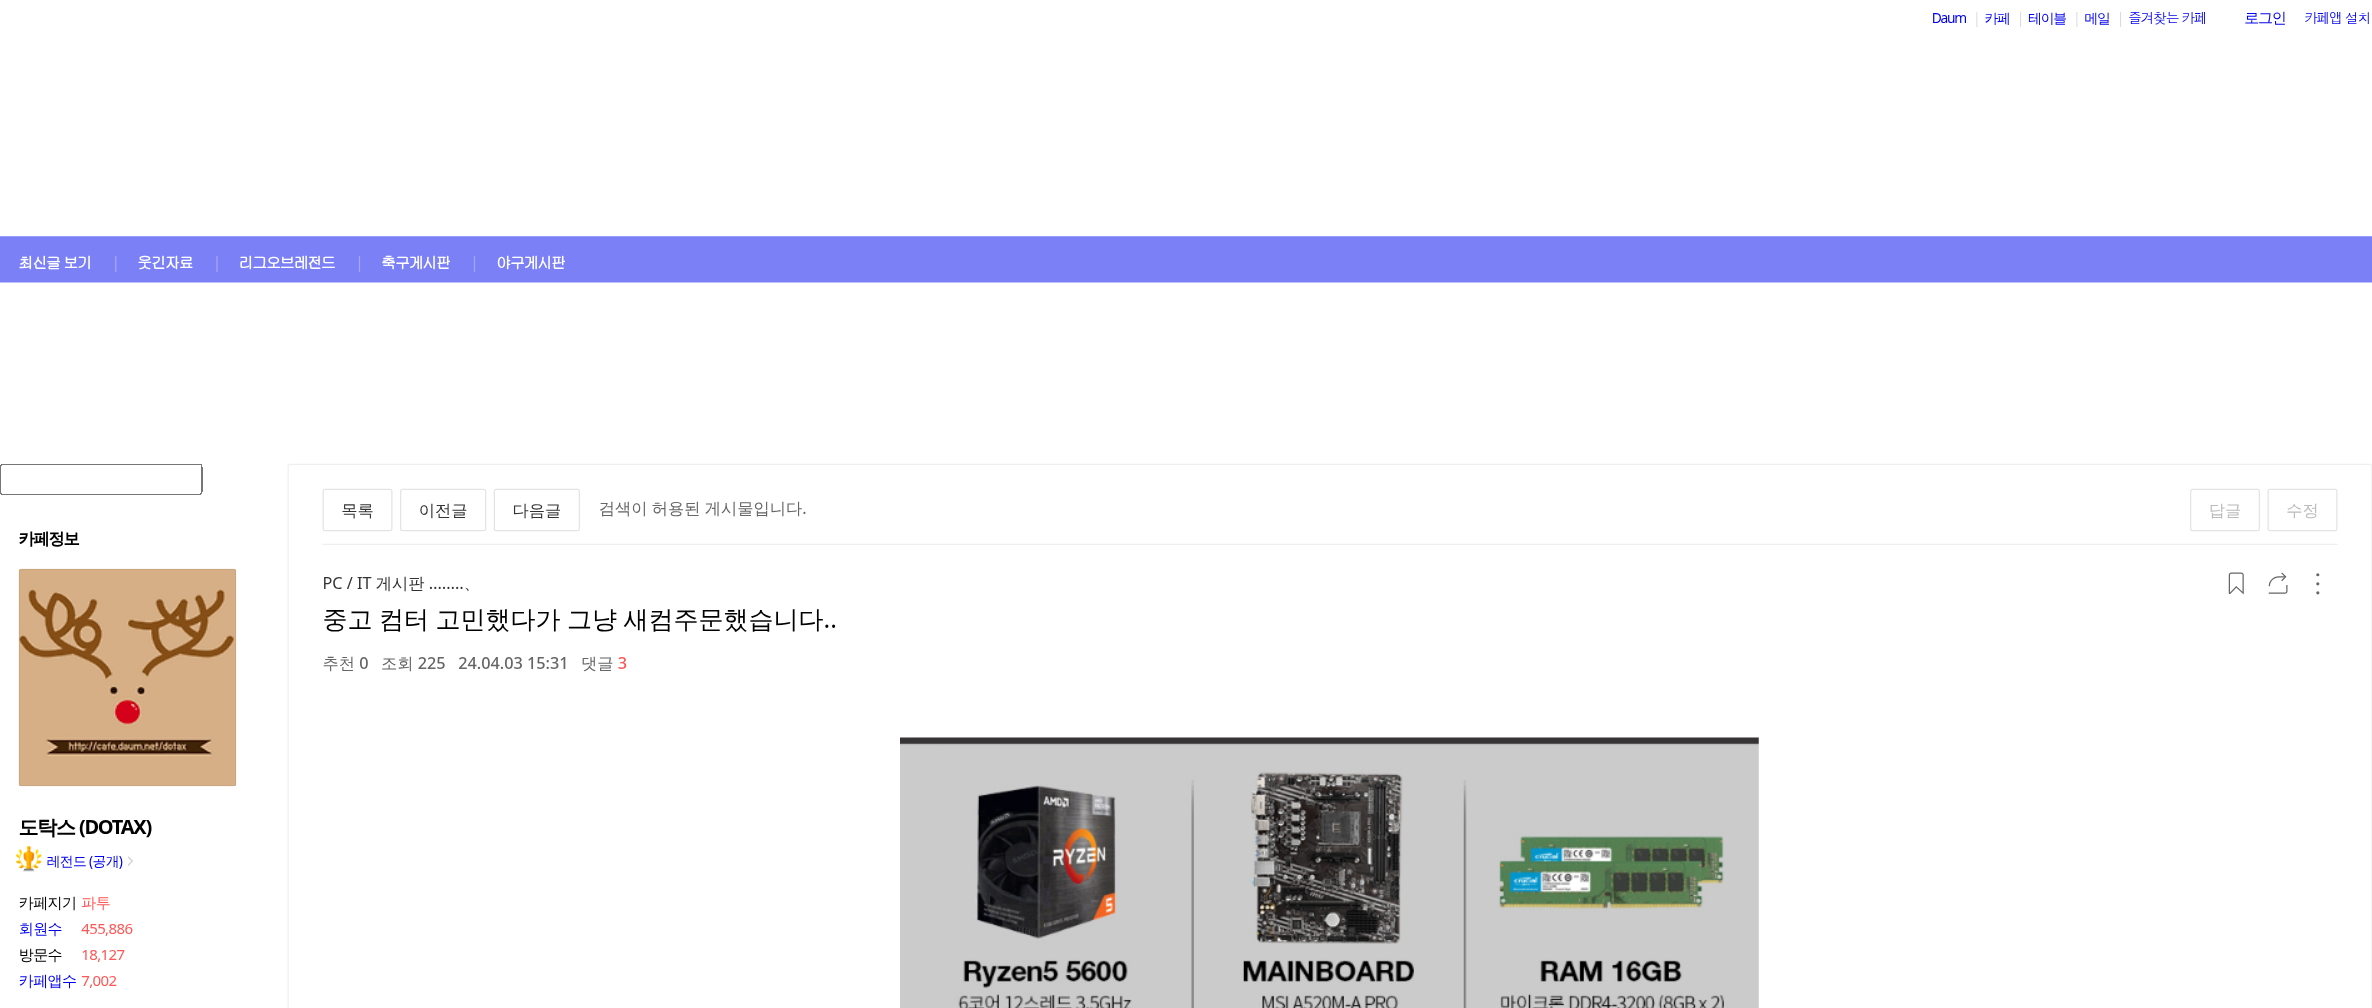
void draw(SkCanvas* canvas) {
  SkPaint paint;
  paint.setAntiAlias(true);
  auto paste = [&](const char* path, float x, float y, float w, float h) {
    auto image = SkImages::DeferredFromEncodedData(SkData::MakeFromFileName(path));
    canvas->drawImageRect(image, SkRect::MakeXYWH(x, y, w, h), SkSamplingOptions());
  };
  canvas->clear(0xffffffff);
  paste("img/1.png", 0, 11, 2372, 997);
}
